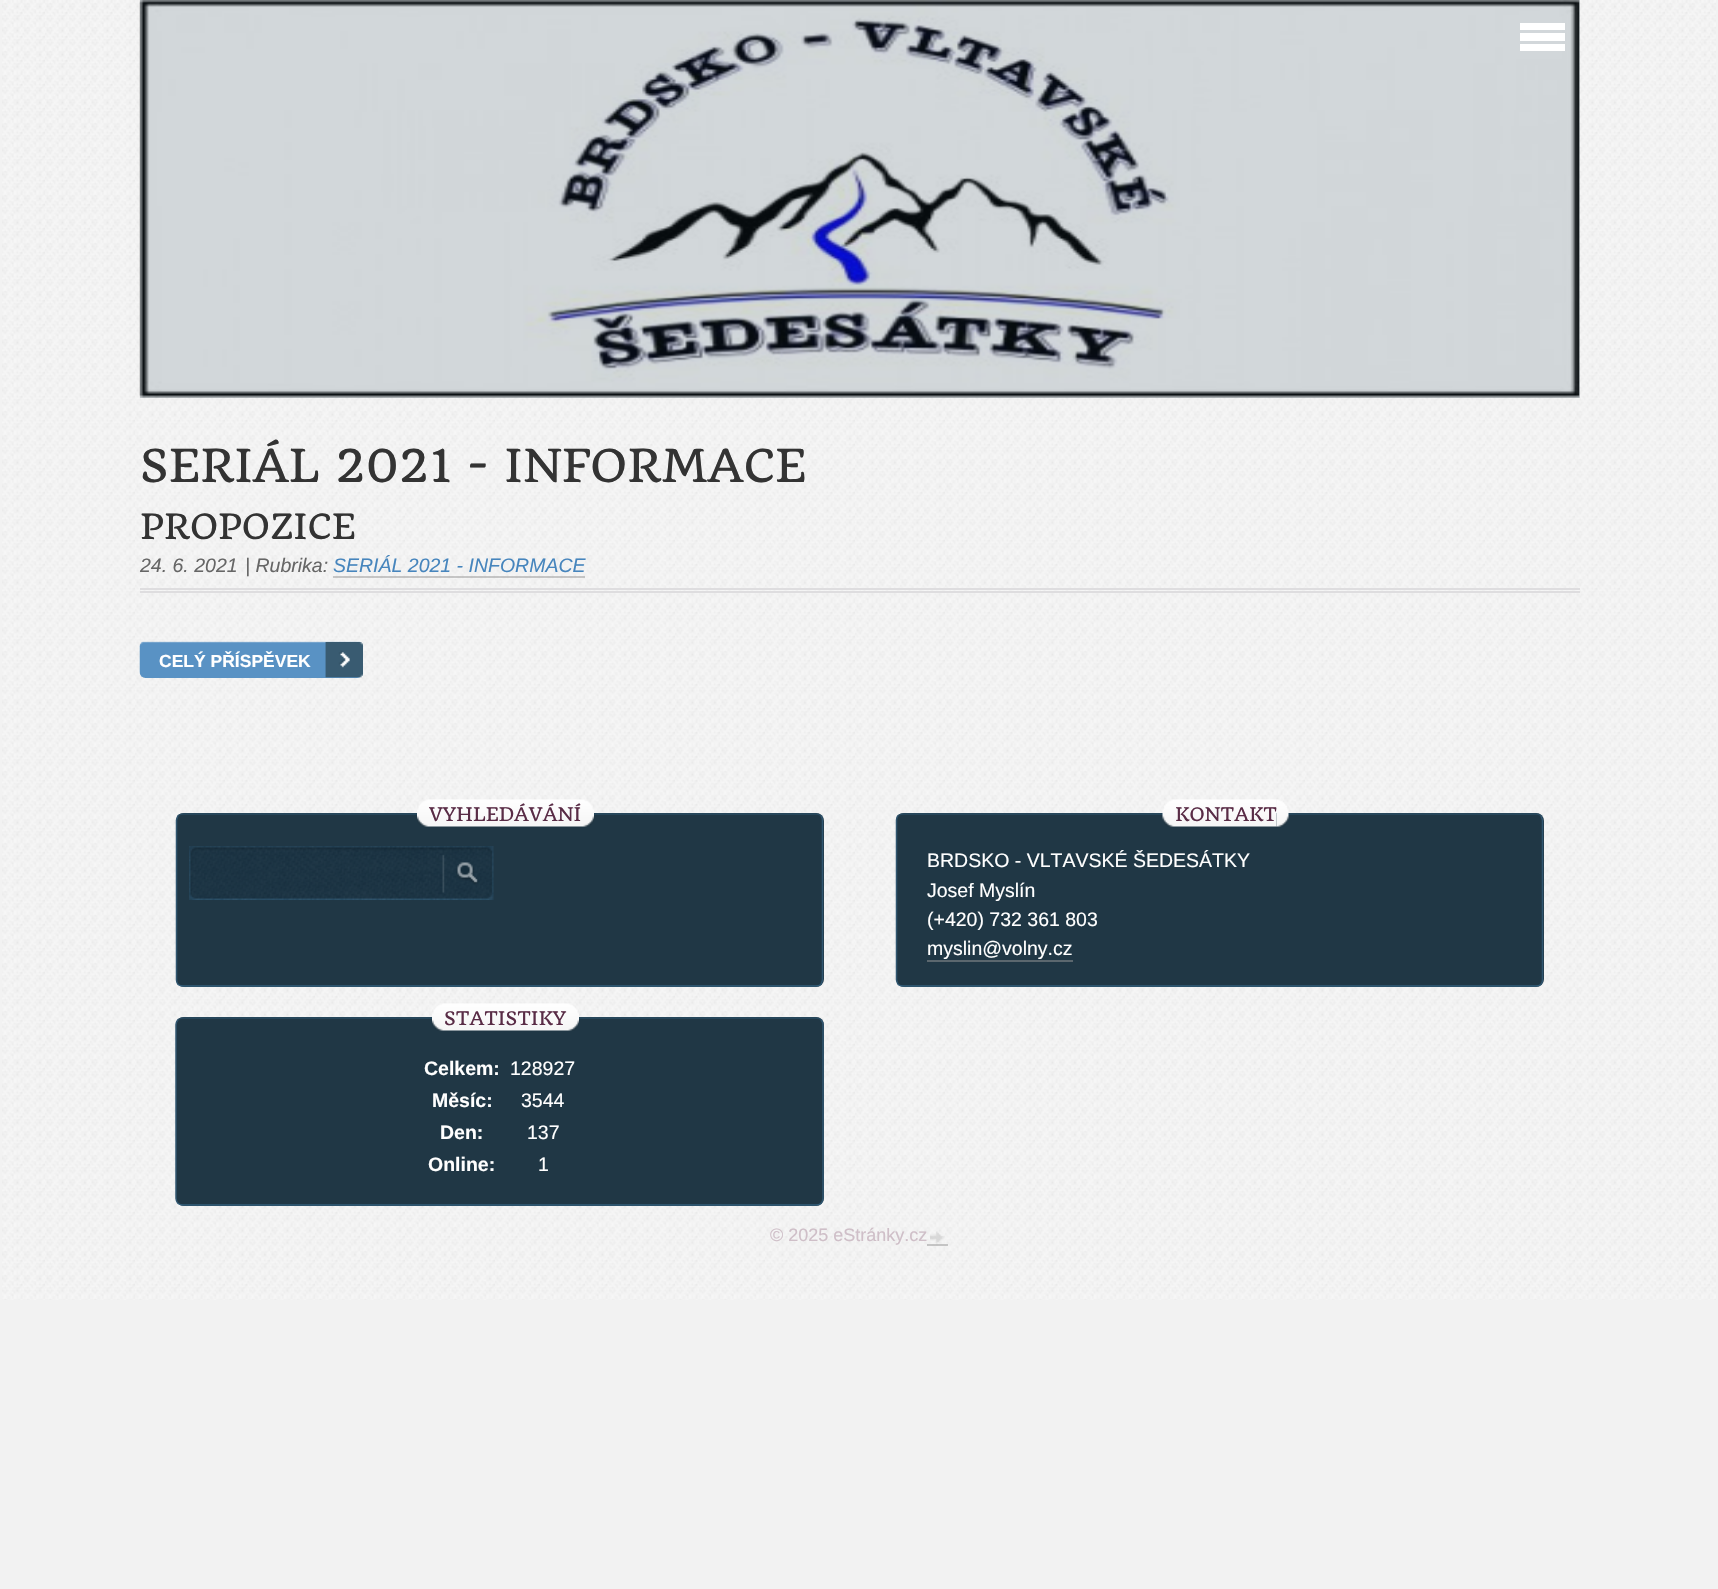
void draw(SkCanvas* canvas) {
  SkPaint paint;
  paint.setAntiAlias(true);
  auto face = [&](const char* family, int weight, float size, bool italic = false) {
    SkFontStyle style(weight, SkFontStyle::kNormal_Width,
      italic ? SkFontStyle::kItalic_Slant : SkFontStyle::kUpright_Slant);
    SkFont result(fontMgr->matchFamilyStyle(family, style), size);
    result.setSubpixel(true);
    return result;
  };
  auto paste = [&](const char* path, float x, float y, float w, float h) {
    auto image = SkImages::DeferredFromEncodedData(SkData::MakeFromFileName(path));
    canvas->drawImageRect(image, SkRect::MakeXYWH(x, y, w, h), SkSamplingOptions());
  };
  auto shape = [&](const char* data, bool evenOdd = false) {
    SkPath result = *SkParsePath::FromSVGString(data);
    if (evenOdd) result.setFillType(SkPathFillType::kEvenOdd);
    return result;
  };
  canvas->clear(0xfff2f2f2);
  paste("img/1.png", 2, 0, 1714, 1300);
  paste("img/2.png", 139, 0, 1441, 398);
  {
    const struct { float x, y, w, h; SkColor color; } items[] = {
      {140, 0, 1440, 398, 0x331f3745},
      {1520, 23, 45, 7, 0xffffffff},
      {1520, 33, 45, 8, 0xffffffff},
      {1520, 44, 45, 7, 0xffffffff},
      {140, 588, 1440, 2, 0xffdedddf},
      {140, 591, 1440, 2, 0xffdedddf},
      {333, 576, 252, 2, 0x80969696},
    };
    for (auto [x, y, w, h, color] : items) {
      paint.setColor(color);
      canvas->drawRect(SkRect::MakeXYWH(x, y, w, h), paint);
    }
  }
  paste("img/3.png", 139, 641, 225, 37);
  paste("img/4.png", 325, 642, 38, 36);
  paint.setColor(0xff203745);
  canvas->drawRoundRect(SkRect::MakeXYWH(176, 813, 648, 174), 8, 8, paint);
  paint.setStroke(true);
  paint.setStrokeWidth(1.5f);
  paint.setColor(0xff274a61);
  canvas->drawPath(shape("M178 815.5C179.5 814.5 181 814 183 814H816C818 814 819.5 814.5 821 815.5"), paint);
  paint.setColor(0xff2f556f);
  canvas->drawPath(shape("M821 815.5C822 817 822.5 818.5 822.5 820V980L821 984.5"), paint);
  paint.setColor(0xff315d7a);
  canvas->drawPath(shape("M821 984.5C819.5 985.5 818 986 816 986H183C181 986 179.5 985.5 178 984.5"), paint);
  paint.setColor(0xff2f556f);
  canvas->drawPath(shape("M178 984.5C177 983 176.5 981.5 176.5 980V820L178 815.5"), paint);
  paste("img/5.png", 417, 799, 165, 28);
  paste("img/6.png", 582, 799, 12, 28);
  paste("img/7.png", 189, 846, 252, 54);
  paste("img/8.png", 441, 846, 53, 54);
  paint.setStroke(false);
  paint.setColor(0xff203745);
  canvas->drawRoundRect(SkRect::MakeXYWH(896, 813, 648, 174), 8, 8, paint);
  paint.setStroke(true);
  paint.setColor(0xff274a61);
  canvas->drawPath(shape("M898 815.5C899.5 814.5 901 814 903 814H1536C1538 814 1539.5 814.5 1541 815.5"), paint);
  paint.setColor(0xff2f556f);
  canvas->drawPath(shape("M1541 815.5L1542.5 820V980C1542.5 981.5 1542 983 1541 984.5"), paint);
  paint.setColor(0xff315d7a);
  canvas->drawPath(shape("M1541 984.5C1539.5 985.5 1538 986 1536 986H903C901 986 899.5 985.5 898 984.5"), paint);
  paint.setColor(0xff2f556f);
  canvas->drawPath(shape("M898 984.5L896.5 980V820C896.5 818.5 897 817 898 815.5"), paint);
  paste("img/9.png", 1162, 799, 115, 28);
  paste("img/10.png", 1276, 799, 13, 28);
  paint.setStroke(false);
  paint.setColor(0xff5b676e);
  canvas->drawRect(SkRect::MakeXYWH(927, 960, 146, 2), paint);
  paint.setColor(0xff203745);
  canvas->drawRoundRect(SkRect::MakeXYWH(176, 1017, 648, 189), 8, 8, paint);
  paint.setStroke(true);
  paint.setColor(0xff274a61);
  canvas->drawPath(shape("M178 1019.5C179.5 1018.5 181 1018 183 1018H816C818 1018 819.5 1018.5 821 1019.5"), paint);
  paint.setColor(0xff2f556f);
  canvas->drawPath(shape("M821 1019.5C822 1021 823 1022.5 823 1024.5V1198.5C823 1200.5 822 1202 821 1203.5"), paint);
  paint.setColor(0xff315d7a);
  canvas->drawPath(shape("M821 1203.5C819.5 1204.5 818 1205 816 1205H183C181 1205 179.5 1204.5 178 1203.5"), paint);
  paint.setColor(0xff2f556f);
  canvas->drawPath(shape("M178 1203.5C177 1202 176 1200.5 176 1198.5V1024.5C176 1022.5 177 1021 178 1019.5"), paint);
  paste("img/11.png", 432, 1003, 135, 28);
  paste("img/12.png", 567, 1003, 12, 28);
  paste("img/13.png", 930, 1231, 14, 13);
  paint.setStroke(false);
  paint.setColor(0x80969696);
  canvas->drawRect(SkRect::MakeXYWH(927, 1244, 21, 2), paint);
  auto f0 = face("Quando", 400, 51);
  paint.setColor(0xff333333);
  canvas->drawString("SERIÁL 2021 - INFORMACE", 140, 482, f0, paint);
  auto f1 = face("Quando", 400, 39);
  canvas->drawString("PROPOZICE", 140, 539, f1, paint);
  auto f2 = face("Liberation Sans", 400, 19.5f, true);
  paint.setColor(0xff666666);
  canvas->drawString("24. 6. 2021", 140, 572, f2, paint);
  canvas->drawString("| Rubrika:", 245, 572, f2, paint);
  paint.setColor(0xff4685bd);
  canvas->drawString("SERIÁL 2021 - INFORMACE", 333, 572, f2, paint);
  auto f3 = face("Liberation Sans", 700, 17.5f);
  paint.setColor(0xffffffff);
  canvas->drawString("CELÝ PŘÍSPĚVEK", 159, 667, f3, paint);
  auto f4 = face("Quando", 400, 21);
  paint.setColor(0xff592c46);
  canvas->drawString("VYHLEDÁVÁNÍ", 429, 821, f4, paint);
  canvas->drawString("KONTAKT", 1175, 821, f4, paint);
  auto f5 = face("Liberation Sans", 400, 19.5f);
  paint.setColor(0xffffffff);
  {
    const struct { const char* s; float x, y; } items[] = {
      {"BRDSKO - VLTAVSKÉ ŠEDESÁTKY", 927, 867},
      {"Josef Myslín", 927, 897},
      {"(+420) 732 361 803", 927, 926},
      {"myslin@volny.cz", 927, 955},
    };
    for (auto [s, x, y] : items) {
      canvas->drawString(s, x, y, f5, paint);
    }
  }
  paint.setColor(0xff592c46);
  canvas->drawString("STATISTIKY", 444, 1025, f4, paint);
  auto f6 = face("Liberation Sans", 700, 19.5f);
  paint.setColor(0xffffffff);
  canvas->drawString("Celkem:", 424, 1075, f6, paint);
  canvas->drawString("128927", 510, 1075, f5, paint);
  canvas->drawString("Měsíc:", 432, 1107, f6, paint);
  canvas->drawString("3544", 521, 1107, f5, paint);
  canvas->drawString("Den:", 440, 1139, f6, paint);
  canvas->drawString("137", 527, 1139, f5, paint);
  canvas->drawString("Online:", 428, 1171, f6, paint);
  canvas->drawString("1", 538, 1171, f5, paint);
  auto f7 = face("Liberation Sans", 400, 18);
  paint.setColor(0xffcfbfc8);
  canvas->drawString("© 2025 eStránky.cz", 770, 1241, f7, paint);
}
